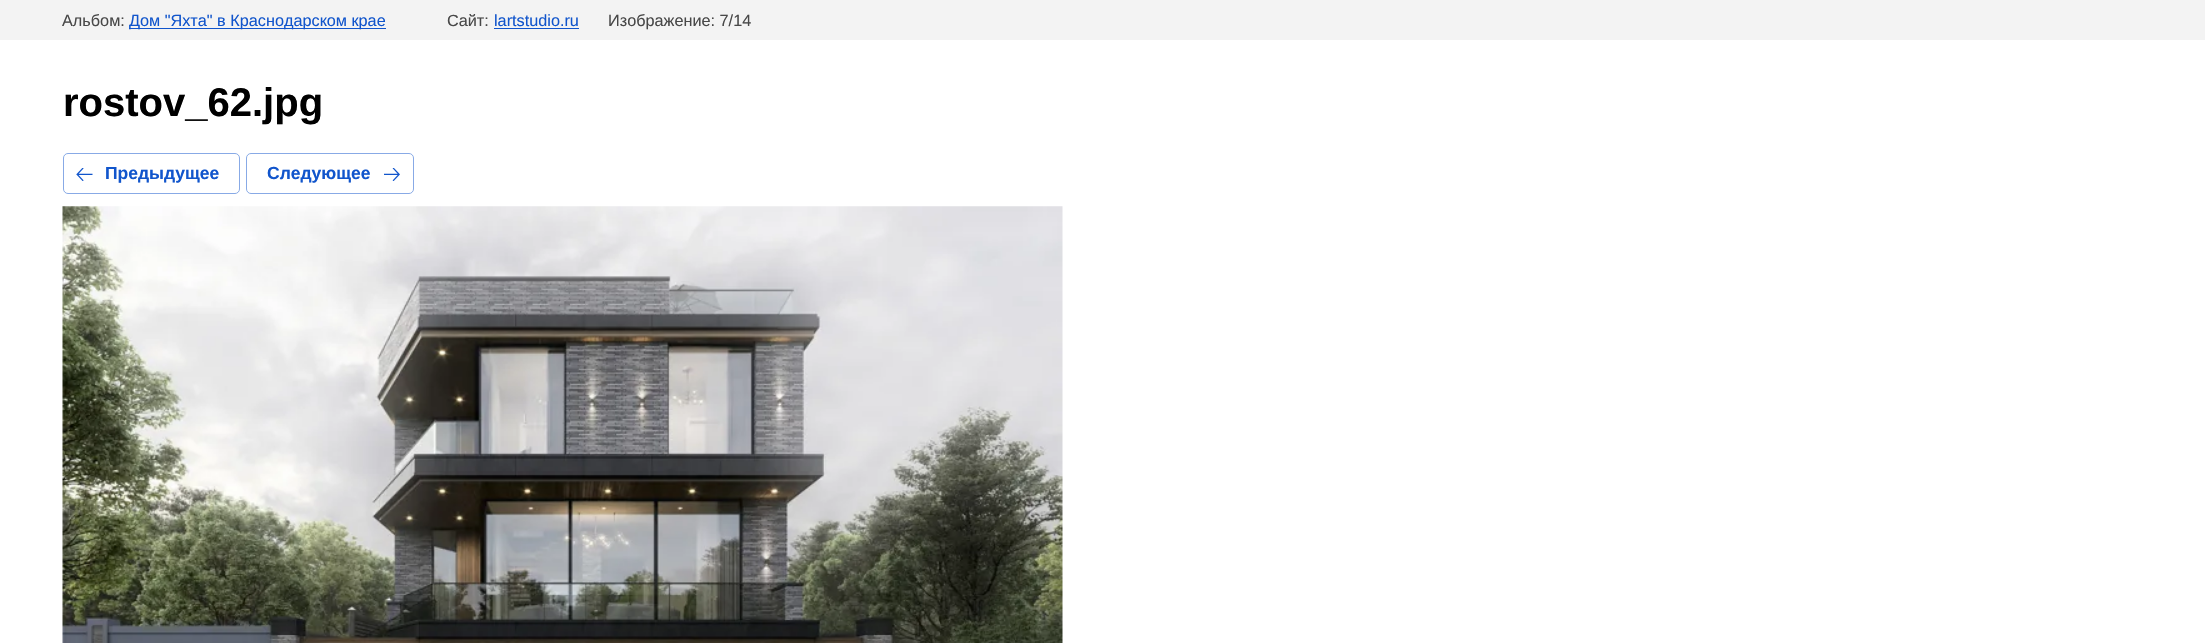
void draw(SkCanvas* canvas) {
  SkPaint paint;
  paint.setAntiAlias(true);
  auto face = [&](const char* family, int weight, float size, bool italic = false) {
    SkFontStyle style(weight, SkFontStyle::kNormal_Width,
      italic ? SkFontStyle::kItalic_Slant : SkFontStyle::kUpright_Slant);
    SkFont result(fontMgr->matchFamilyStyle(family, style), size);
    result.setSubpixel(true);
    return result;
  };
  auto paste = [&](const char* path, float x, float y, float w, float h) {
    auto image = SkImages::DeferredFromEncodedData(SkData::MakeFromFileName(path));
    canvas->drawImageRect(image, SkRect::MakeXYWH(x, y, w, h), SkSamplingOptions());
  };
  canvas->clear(0xffffffff);
  {
    const struct { float x, y, w, h; SkColor color; } items[] = {
      {0, 0, 2205, 40, 0xfff3f3f3},
      {129, 28, 257, 1, 0xff1155cc},
      {494, 28, 85, 1, 0xff1155cc},
    };
    for (auto [x, y, w, h, color] : items) {
      paint.setColor(color);
      canvas->drawRect(SkRect::MakeXYWH(x, y, w, h), paint);
    }
  }
  paint.setStroke(true);
  paint.setStrokeWidth(1);
  paint.setColor(0xff88aae6);
  canvas->drawRoundRect(SkRect::MakeXYWH(63.5f, 153.5f, 176, 40), 4.5f, 4.5f, paint);
  paste("img/1.png", 76, 168, 17, 13);
  canvas->drawRoundRect(SkRect::MakeXYWH(246.5f, 153.5f, 167, 40), 4.5f, 4.5f, paint);
  paste("img/2.png", 384, 168, 16, 13);
  paste("img/3.png", 62, 206, 1001, 437);
  auto f0 = face("Liberation Sans", 400, 16.25f);
  paint.setStroke(false);
  paint.setColor(0xff484848);
  canvas->drawString("Альбом:", 62, 26, f0, paint);
  paint.setColor(0xff1155cc);
  canvas->drawString("Дом \"Яхта\" в Краснодарском крае", 129, 26, f0, paint);
  paint.setColor(0xff484848);
  canvas->drawString("Сайт:", 447, 26, f0, paint);
  paint.setColor(0xff1155cc);
  canvas->drawString("lartstudio.ru", 494, 26, f0, paint);
  paint.setColor(0xff484848);
  canvas->drawString("Изображение: 7/14", 608, 26, f0, paint);
  auto f1 = face("Liberation Sans", 700, 40);
  paint.setColor(0xff000000);
  canvas->drawString("rostov_62.jpg", 63, 116, f1, paint);
  auto f2 = face("Liberation Sans", 700, 17.5f);
  paint.setColor(0xff1155cc);
  canvas->drawString("Предыдущее", 105, 179, f2, paint);
  canvas->drawString("Следующее", 267, 179, f2, paint);
}
